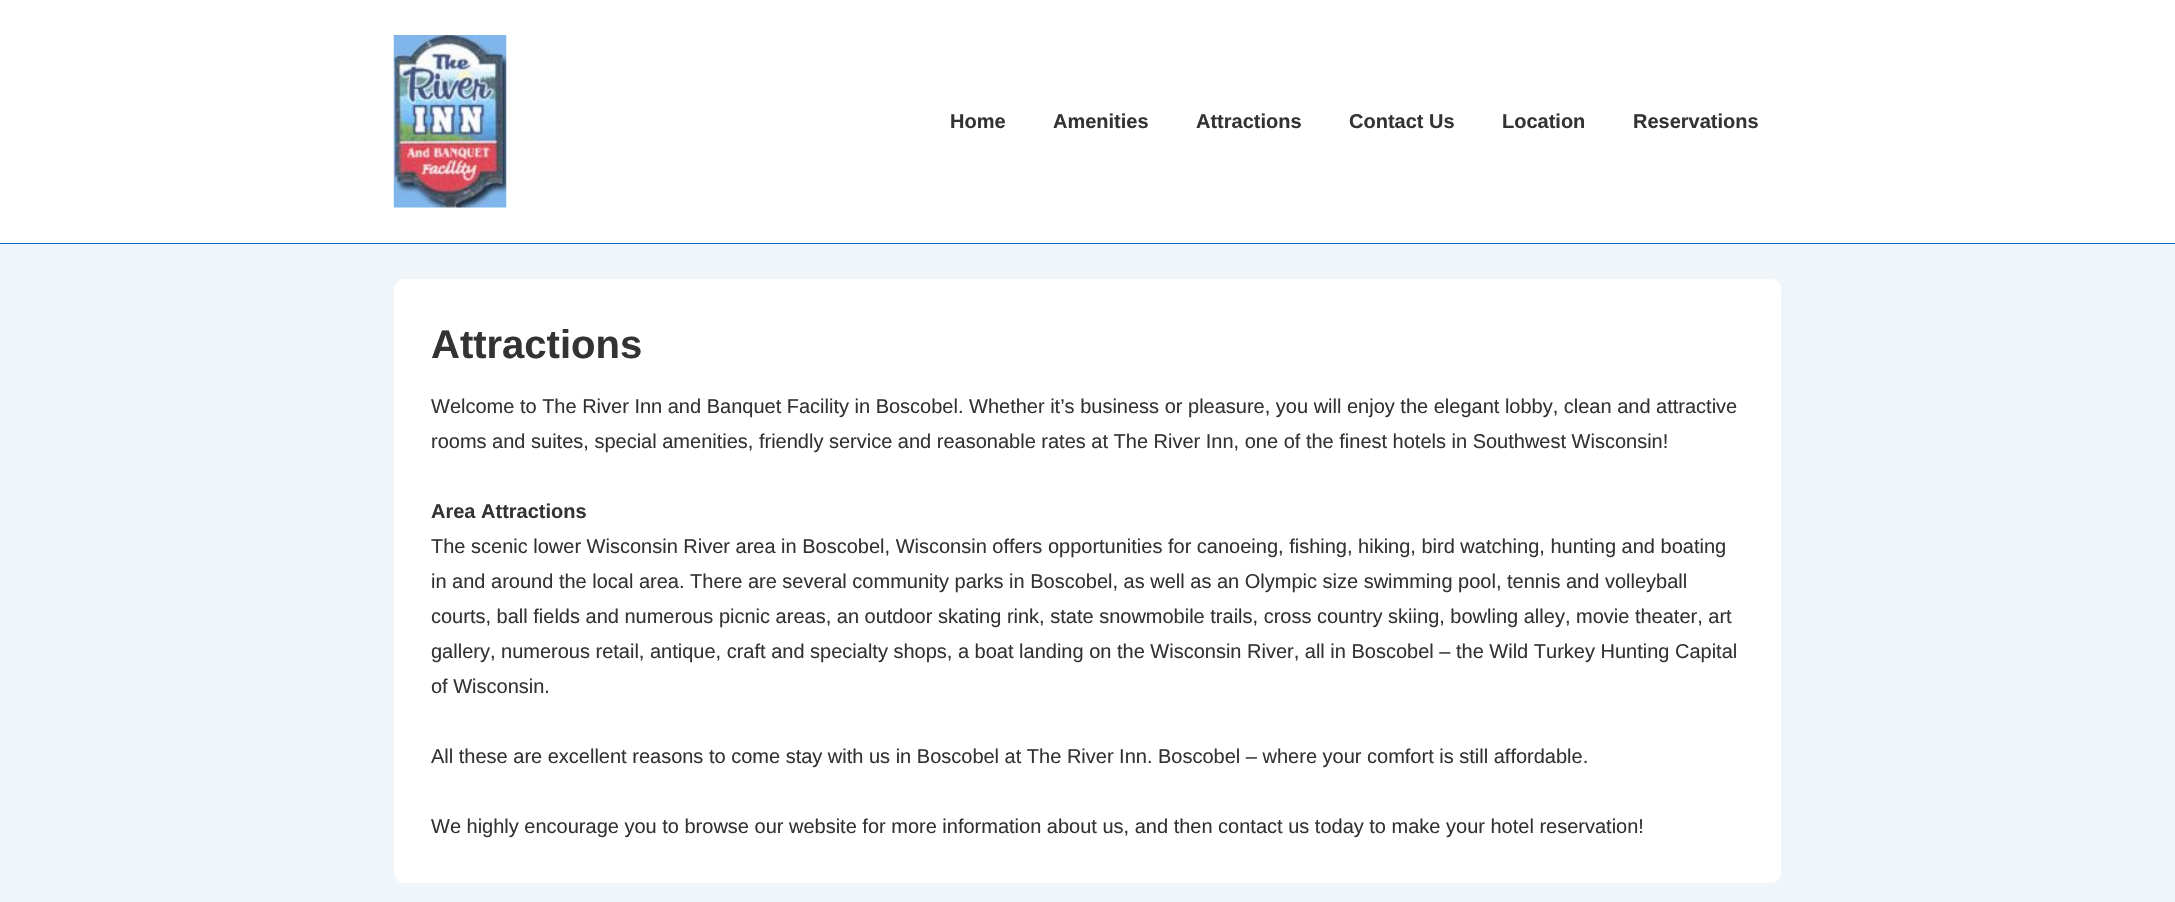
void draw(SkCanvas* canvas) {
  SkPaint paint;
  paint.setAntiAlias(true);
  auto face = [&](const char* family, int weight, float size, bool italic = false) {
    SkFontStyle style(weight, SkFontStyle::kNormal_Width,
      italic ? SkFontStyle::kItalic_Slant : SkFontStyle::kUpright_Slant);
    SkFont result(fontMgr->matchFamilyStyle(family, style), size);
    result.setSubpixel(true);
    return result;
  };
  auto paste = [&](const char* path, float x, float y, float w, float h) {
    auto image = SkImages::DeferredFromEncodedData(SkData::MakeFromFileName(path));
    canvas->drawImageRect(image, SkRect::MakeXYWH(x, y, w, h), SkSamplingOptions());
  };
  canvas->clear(0xfff0f5fa);
  paint.setColor(0xffffffff);
  canvas->drawRect(SkRect::MakeXYWH(0, 0, 2175, 243), paint);
  paint.setColor(0xff0066cc);
  canvas->drawRect(SkRect::MakeXYWH(0, 243, 2175, 1), paint);
  paste("img/1.png", 393, 35, 114, 173);
  paint.setColor(0xffffffff);
  canvas->drawRoundRect(SkRect::MakeXYWH(394, 279, 1387, 604), 10, 10, paint);
  auto f0 = face("Liberation Sans", 700, 20);
  paint.setColor(0xff333333);
  {
    const struct { const char* s; float x, y; } items[] = {
      {"Home", 950, 128},
      {"Amenities", 1053, 128},
      {"Attractions", 1196, 128},
      {"Contact Us", 1349, 128},
      {"Location", 1502, 128},
      {"Reservations", 1633, 128},
    };
    for (auto [s, x, y] : items) {
      canvas->drawString(s, x, y, f0, paint);
    }
  }
  auto f1 = face("Liberation Sans", 700, 40);
  canvas->drawString("Attractions", 431, 358, f1, paint);
  auto f2 = face("Liberation Sans", 400, 20);
  canvas->drawString("Welcome to The River Inn and Banquet Facility in Boscobel. Whether it’s business or pleasure, you will enjoy the elegant lobby, clean and attractive", 431, 413, f2, paint);
  canvas->drawString("rooms and suites, special amenities, friendly service and reasonable rates at The River Inn, one of the finest hotels in Southwest Wisconsin!", 431, 448, f2, paint);
  canvas->drawString("Area Attractions", 431, 518, f0, paint);
  {
    const struct { const char* s; float x, y; } items[] = {
      {"The scenic lower Wisconsin River area in Boscobel, Wisconsin offers opportunities for canoeing, fishing, hiking, bird watching, hunting and boating", 431, 553},
      {"in and around the local area. There are several community parks in Boscobel, as well as an Olympic size swimming pool, tennis and volleyball", 431, 588},
      {"courts, ball fields and numerous picnic areas, an outdoor skating rink, state snowmobile trails, cross country skiing, bowling alley, movie theater, art", 431, 623},
      {"gallery, numerous retail, antique, craft and specialty shops, a boat landing on the Wisconsin River, all in Boscobel – the Wild Turkey Hunting Capital", 431, 658},
      {"of Wisconsin.", 431, 693},
      {"All these are excellent reasons to come stay with us in Boscobel at The River Inn. Boscobel – where your comfort is still affordable.", 431, 763},
      {"We highly encourage you to browse our website for more information about us, and then contact us today to make your hotel reservation!", 431, 833},
    };
    for (auto [s, x, y] : items) {
      canvas->drawString(s, x, y, f2, paint);
    }
  }
}
